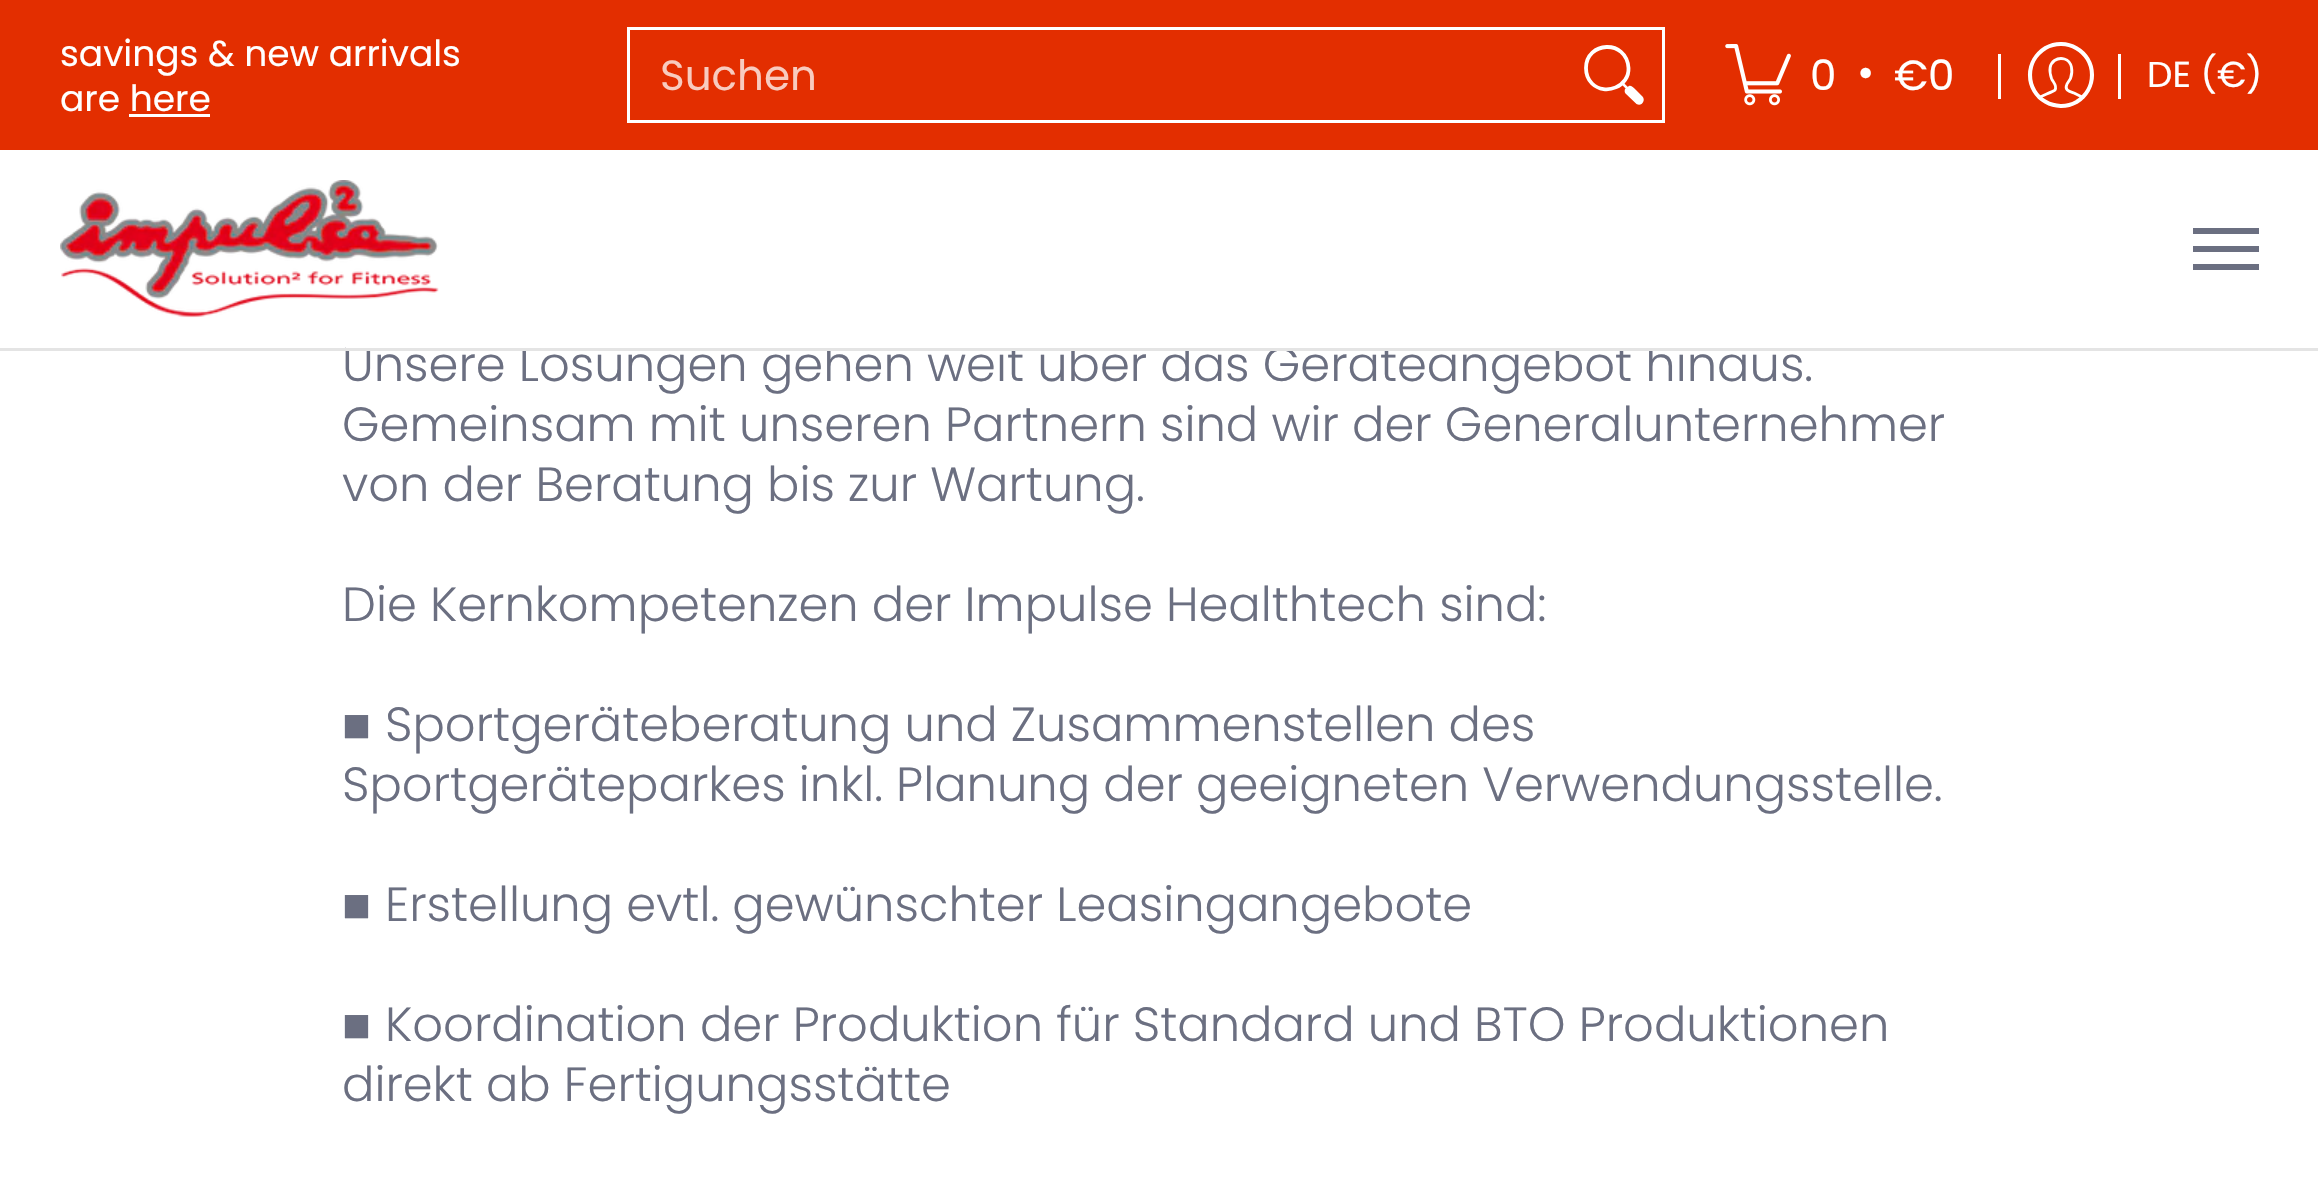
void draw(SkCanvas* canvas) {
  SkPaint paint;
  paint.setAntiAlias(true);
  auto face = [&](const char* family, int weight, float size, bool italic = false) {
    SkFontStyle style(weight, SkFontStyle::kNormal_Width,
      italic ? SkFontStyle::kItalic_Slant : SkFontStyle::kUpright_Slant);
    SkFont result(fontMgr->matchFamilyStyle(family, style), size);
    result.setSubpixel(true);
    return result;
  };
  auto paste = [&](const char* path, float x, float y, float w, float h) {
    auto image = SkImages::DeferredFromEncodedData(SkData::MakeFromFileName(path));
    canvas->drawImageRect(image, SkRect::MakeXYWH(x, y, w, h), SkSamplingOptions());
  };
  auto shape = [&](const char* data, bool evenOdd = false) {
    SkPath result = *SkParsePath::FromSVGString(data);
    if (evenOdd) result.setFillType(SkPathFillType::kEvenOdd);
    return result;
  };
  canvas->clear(0xffffffff);
  paint.setColor(0xffe32e00);
  canvas->drawRect(SkRect::MakeXYWH(0, 0, 2318, 150), paint);
  paint.setColor(0xffffffff);
  canvas->drawRect(SkRect::MakeXYWH(129, 114, 81, 3), paint);
  paint.setStroke(true);
  paint.setStrokeWidth(3);
  canvas->drawRect(SkRect::MakeXYWH(628.5f, 28.5f, 1035, 93), paint);
  paint.setStrokeWidth(3.8f);
  paint.setStrokeCap(SkPaint::kRound_Cap);
  paint.setStrokeJoin(SkPaint::kRound_Join);
  canvas->drawPath(shape("M1586 68C1586 74 1588 79.5 1592 83.5C1605.5 96.5 1629.5 86 1628.5 68C1626.5 38.5 1586 41.5 1586 68Z"), paint);
  paint.setStrokeWidth(2.5f);
  paint.setStrokeCap(SkPaint::kButt_Cap);
  canvas->drawPath(shape("M1621.5 82.5L1627.5 88.5"), paint);
  paint.setStroke(false);
  canvas->drawPath(shape("M1642.5 96.5C1646 100.5 1641.5 107 1636.5 104L1625.5 93.5C1624.5 92.5 1624.5 90.5 1625 89L1627 87.5C1630.5 83.5 1633 87 1636 90Z"), paint);
  paste("img/1.png", 1725, 44, 66, 62);
  canvas->drawRect(SkRect::MakeXYWH(1998, 54, 3, 45), paint);
  paint.setStroke(true);
  paint.setStrokeWidth(4.1f);
  paint.setStrokeCap(SkPaint::kRound_Cap);
  canvas->drawPath(shape("M2030 75C2030 99 2056 113.5 2076.5 102C2086 96 2092 86 2092 75C2092 51 2066 36.5 2045.5 48C2036 54 2030 64 2030 75Z"), paint);
  paint.setStrokeWidth(2.8f);
  canvas->drawPath(shape("M2039 97.5C2041.5 96 2054.5 91 2055 90C2057.5 85 2053 82.5 2051.5 78.5C2049.5 72.5 2049 64.5 2054.5 60.5C2057.5 58.5 2061 58 2064.5 59C2072.5 61.5 2073 71.5 2070.5 78.5L2067 84C2064 90.5 2069.5 91.5 2074 93L2083 97.5"), paint);
  paint.setStroke(false);
  canvas->drawRect(SkRect::MakeXYWH(2118, 54, 3, 45), paint);
  paste("img/2.png", 60, 180, 379, 138);
  {
    const struct { float x, y, w, h; SkColor color; } items[] = {
      {2193, 228, 66, 6, 0xff6b6f81},
      {2193, 264, 66, 6, 0xff6b6f81},
      {2193, 246, 66, 6, 0xff6b6f81},
    };
    for (auto [x, y, w, h, color] : items) {
      paint.setColor(color);
      canvas->drawRect(SkRect::MakeXYWH(x, y, w, h), paint);
    }
  }
  auto f0 = face("Poppins", 400, 36);
  paint.setColor(0xffffffff);
  canvas->drawString("savings & new arrivals", 60, 66, f0, paint);
  canvas->drawString("are here", 60, 111, f0, paint);
  auto f1 = face("Poppins", 400, 42);
  paint.setColor(0xfff8cbbf);
  canvas->drawString("Suchen", 660, 90, f1, paint);
  paint.setColor(0xffffffff);
  {
    const struct { const char* s; float x, y; } items[] = {
      {"0", 1810, 90},
      {"•", 1857, 87},
      {"€0", 1894, 90},
    };
    for (auto [s, x, y] : items) {
      canvas->drawString(s, x, y, f1, paint);
    }
  }
  canvas->drawString("DE (€)", 2147, 87, f0, paint);
  auto f2 = face("Poppins", 300, 48);
  paint.setColor(0xff6b6f81);
  canvas->drawString("Unsere Lösungen gehen weit über das Geräteangebot hinaus.", 342, 381, f2, paint);
  paint.setColor(0xffe4e4e4);
  canvas->drawRect(SkRect::MakeXYWH(0, 348, 2318, 3), paint);
  paint.setColor(0xffffffff);
  canvas->drawRect(SkRect::MakeXYWH(346, 344, 1339, 4), paint);
  paint.setColor(0xff6b6f81);
  {
    const struct { const char* s; float x, y; } items[] = {
      {"Gemeinsam mit unseren Partnern sind wir der Generalunternehmer", 342, 441},
      {"von der Beratung bis zur Wartung.", 342, 501},
      {"Die Kernkompetenzen der Impulse Healthtech sind:", 342, 621},
    };
    for (auto [s, x, y] : items) {
      canvas->drawString(s, x, y, f2, paint);
    }
  }
  auto f3 = face("Liberation Sans", 400, 48);
  canvas->drawString("■", 342, 741, f3, paint);
  canvas->drawString("Sportgeräteberatung und Zusammenstellen des", 385, 741, f2, paint);
  canvas->drawString("Sportgeräteparkes inkl. Planung der geeigneten Verwendungsstelle.", 342, 801, f2, paint);
  canvas->drawString("■", 342, 921, f3, paint);
  canvas->drawString("Erstellung evtl. gewünschter Leasingangebote", 385, 921, f2, paint);
  canvas->drawString("■", 342, 1041, f3, paint);
  canvas->drawString("Koordination der Produktion für Standard und BTO Produktionen", 385, 1041, f2, paint);
  canvas->drawString("direkt ab Fertigungsstätte", 342, 1101, f2, paint);
}
